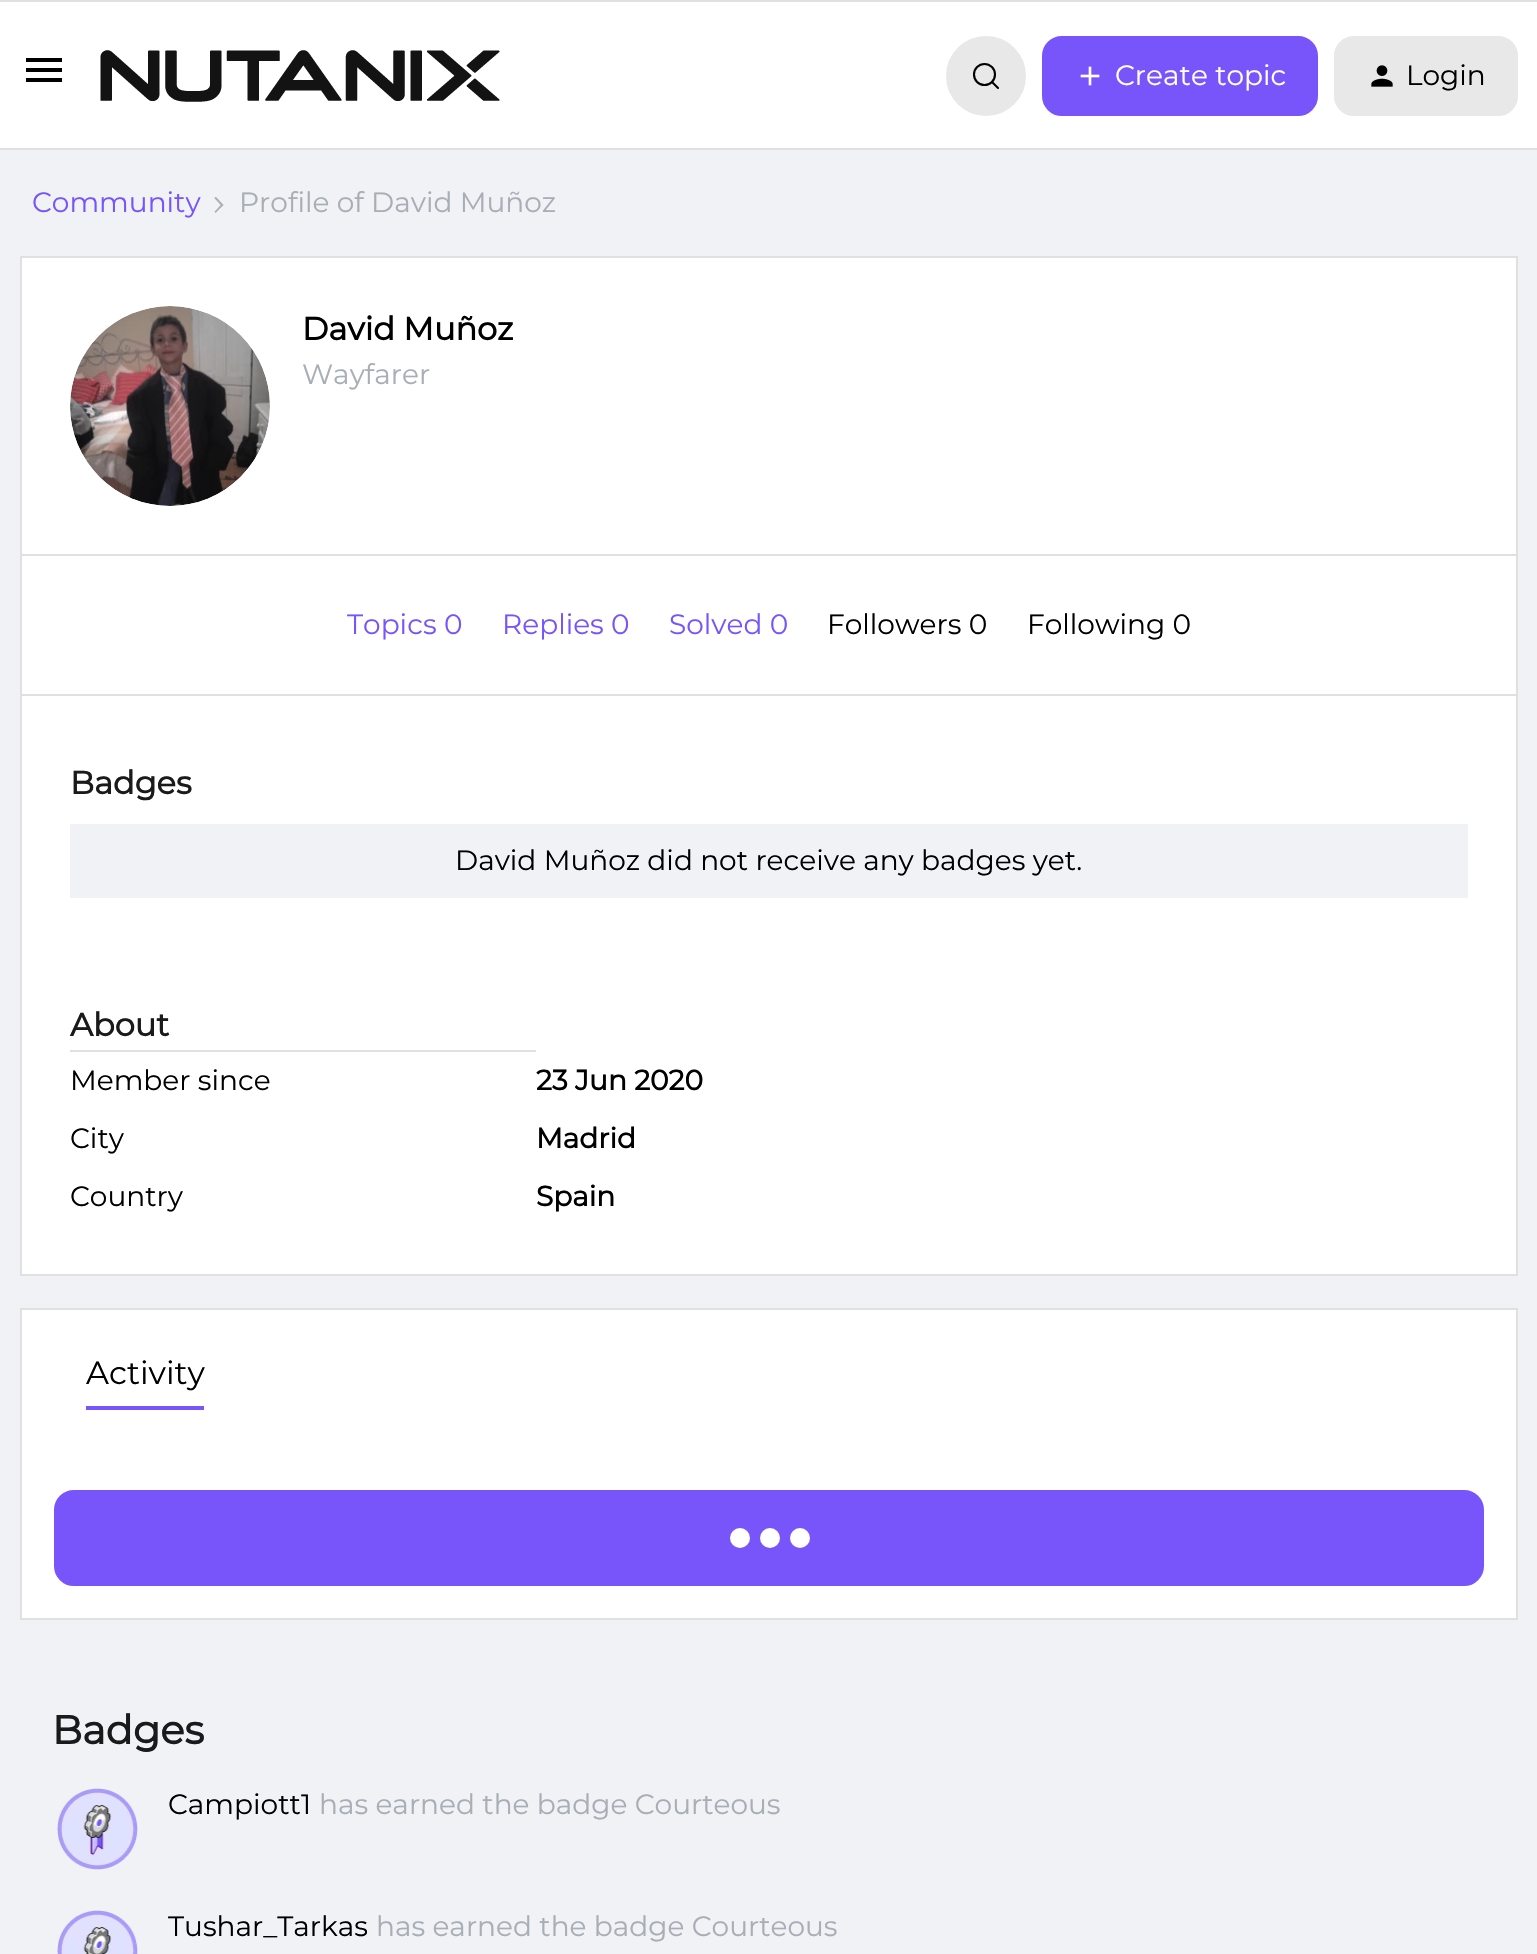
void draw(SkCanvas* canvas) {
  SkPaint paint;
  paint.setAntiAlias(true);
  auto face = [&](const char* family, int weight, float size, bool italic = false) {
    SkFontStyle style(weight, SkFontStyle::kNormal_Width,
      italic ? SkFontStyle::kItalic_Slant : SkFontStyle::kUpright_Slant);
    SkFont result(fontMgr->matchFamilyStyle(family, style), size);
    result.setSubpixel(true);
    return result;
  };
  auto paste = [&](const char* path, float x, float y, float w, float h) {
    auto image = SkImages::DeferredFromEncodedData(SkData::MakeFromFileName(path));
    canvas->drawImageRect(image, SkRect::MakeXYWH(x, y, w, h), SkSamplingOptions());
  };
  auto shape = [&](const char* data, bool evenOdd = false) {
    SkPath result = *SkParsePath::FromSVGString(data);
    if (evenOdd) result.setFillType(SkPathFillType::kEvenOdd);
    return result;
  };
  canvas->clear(0xfff0f2f6);
  {
    const struct { float x, y, w, h; SkColor color; } items[] = {
      {0, 2, 1537, 146, 0xffffffff},
      {0, 0, 1537, 2, 0xffe0e0e0},
      {0, 148, 1537, 2, 0xffe0e0e0},
    };
    for (auto [x, y, w, h, color] : items) {
      paint.setColor(color);
      canvas->drawRect(SkRect::MakeXYWH(x, y, w, h), paint);
    }
  }
  paint.setColor(0xff000000);
  canvas->drawPath(shape("M26 82H62V78H26ZM26 72H62V68H26ZM26 58V62H62V58Z"), paint);
  paste("img/1.png", 100, 50, 400, 52);
  paint.setColor(0xffe8e8e8);
  canvas->drawCircle(986, 76, 39, paint);
  paint.setStroke(true);
  paint.setStrokeWidth(2);
  canvas->drawCircle(986, 76, 39, paint);
  paint.setStrokeWidth(2.1f);
  paint.setColor(0xff000000);
  canvas->drawCircle(984.5f, 74.5f, 10.5f, paint);
  paint.setStrokeCap(SkPaint::kRound_Cap);
  canvas->drawPath(shape("M992 82L998 88"), paint);
  paint.setStroke(false);
  paint.setColor(0xff7855fa);
  canvas->drawRoundRect(SkRect::MakeXYWH(1043, 37, 274, 78), 19, 19, paint);
  paint.setStroke(true);
  paint.setStrokeWidth(2);
  paint.setStrokeCap(SkPaint::kButt_Cap);
  canvas->drawRoundRect(SkRect::MakeXYWH(1043, 37, 274, 78), 19, 19, paint);
  paste("img/2.png", 1080, 66, 20, 20);
  paint.setStroke(false);
  paint.setColor(0xffe8e8e8);
  canvas->drawRoundRect(SkRect::MakeXYWH(1335, 37, 182, 78), 19, 19, paint);
  paint.setStroke(true);
  canvas->drawRoundRect(SkRect::MakeXYWH(1335, 37, 182, 78), 19, 19, paint);
  paste("img/3.png", 1371, 65, 22, 22);
  paste("img/4.png", 214, 197, 10, 16);
  paint.setStroke(false);
  paint.setColor(0xffffffff);
  canvas->drawRect(SkRect::MakeXYWH(21, 257, 1496, 298), paint);
  paint.setStroke(true);
  paint.setColor(0xffe0e0e0);
  canvas->drawRect(SkRect::MakeXYWH(21, 257, 1496, 298), paint);
  paste("img/5.png", 70, 306, 200, 200);
  paint.setStroke(false);
  {
    const struct { float x, y, w, h; SkColor color; } items[] = {
      {22, 556, 1494, 138, 0xffffffff},
      {1516, 556, 2, 720, 0xffe0e0e0},
      {20, 694, 1498, 2, 0xffe0e0e0},
      {20, 556, 2, 140, 0xffe0e0e0},
      {22, 696, 1494, 578, 0xffffffff},
      {20, 696, 2, 250, 0xffe0e0e0},
      {70, 824, 1398, 74, 0xfff0f2f6},
      {20, 1274, 1498, 2, 0xffe0e0e0},
      {20, 946, 2, 330, 0xffe0e0e0},
      {70, 1050, 466, 2, 0xffe0e0e0},
    };
    for (auto [x, y, w, h, color] : items) {
      paint.setColor(color);
      canvas->drawRect(SkRect::MakeXYWH(x, y, w, h), paint);
    }
  }
  paint.setColor(0xffffffff);
  canvas->drawRect(SkRect::MakeXYWH(21, 1309, 1496, 310), paint);
  paint.setStroke(true);
  paint.setColor(0xffe0e0e0);
  canvas->drawRect(SkRect::MakeXYWH(21, 1309, 1496, 310), paint);
  paint.setStroke(false);
  paint.setColor(0xff7855fa);
  canvas->drawRect(SkRect::MakeXYWH(86, 1406, 118, 4), paint);
  canvas->drawRoundRect(SkRect::MakeXYWH(55, 1491, 1428, 94), 19, 19, paint);
  paint.setStroke(true);
  canvas->drawRoundRect(SkRect::MakeXYWH(55, 1491, 1428, 94), 19, 19, paint);
  paint.setStroke(false);
  paint.setColor(0xffffffff);
  canvas->drawCircle(770, 1538, 10, paint);
  canvas->drawCircle(740, 1538, 10, paint);
  canvas->drawCircle(800, 1538, 10, paint);
  paste("img/6.png", 57, 1788, 81, 82);
  paste("img/7.png", 57, 1910, 81, 44);
  auto f0 = face("Montserrat", 100, 28);
  canvas->drawString("Create topic", 1115, 85, f0, paint);
  paint.setColor(0xff000000);
  canvas->drawString("Login", 1406, 85, f0, paint);
  paint.setColor(0xff7855fa);
  canvas->drawString("Community", 32, 212, f0, paint);
  paint.setColor(0xffa7aeb5);
  canvas->drawString("Profile of David Muñoz", 239, 212, f0, paint);
  auto f1 = face("Montserrat", 700, 32);
  paint.setColor(0xff000000);
  canvas->drawString("David Muñoz", 302, 340, f1, paint);
  paint.setColor(0xffa7aeb5);
  canvas->drawString("Wayfarer", 302, 384, f0, paint);
  paint.setColor(0xff7855fa);
  {
    const struct { const char* s; float x, y; } items[] = {
      {"Topics 0", 347, 634},
      {"Replies 0", 502, 634},
      {"Solved 0", 669, 634},
    };
    for (auto [s, x, y] : items) {
      canvas->drawString(s, x, y, f0, paint);
    }
  }
  paint.setColor(0xff000000);
  canvas->drawString("Followers 0", 827, 634, f0, paint);
  canvas->drawString("Following 0", 1027, 634, f0, paint);
  paint.setColor(0xff1a1a1a);
  canvas->drawString("Badges", 70, 794, f1, paint);
  paint.setColor(0xff000000);
  canvas->drawString("David Muñoz did not receive any badges yet.", 455, 870, f0, paint);
  paint.setColor(0xff1a1a1a);
  canvas->drawString("About", 70, 1036, f1, paint);
  paint.setColor(0xff000000);
  canvas->drawString("Member since", 70, 1090, f0, paint);
  auto f2 = face("Montserrat", 700, 28);
  canvas->drawString("23 Jun 2020", 536, 1090, f2, paint);
  canvas->drawString("City", 70, 1148, f0, paint);
  canvas->drawString("Madrid", 536, 1148, f2, paint);
  canvas->drawString("Country", 70, 1206, f0, paint);
  canvas->drawString("Spain", 536, 1206, f2, paint);
  auto f3 = face("Montserrat", 100, 32);
  canvas->drawString("Activity", 86, 1384, f3, paint);
  auto f4 = face("Montserrat", 700, 40);
  paint.setColor(0xff1a1a1a);
  canvas->drawString("Badges", 52, 1744, f4, paint);
  paint.setColor(0xff000000);
  canvas->drawString("Campiott1", 168, 1814, f0, paint);
  paint.setColor(0xffa7aeb5);
  canvas->drawString("has earned the badge Courteous", 319, 1814, f0, paint);
  paint.setColor(0xff000000);
  canvas->drawString("Tushar_Tarkas", 168, 1936, f0, paint);
  paint.setColor(0xffa7aeb5);
  canvas->drawString("has earned the badge Courteous", 376, 1936, f0, paint);
}
